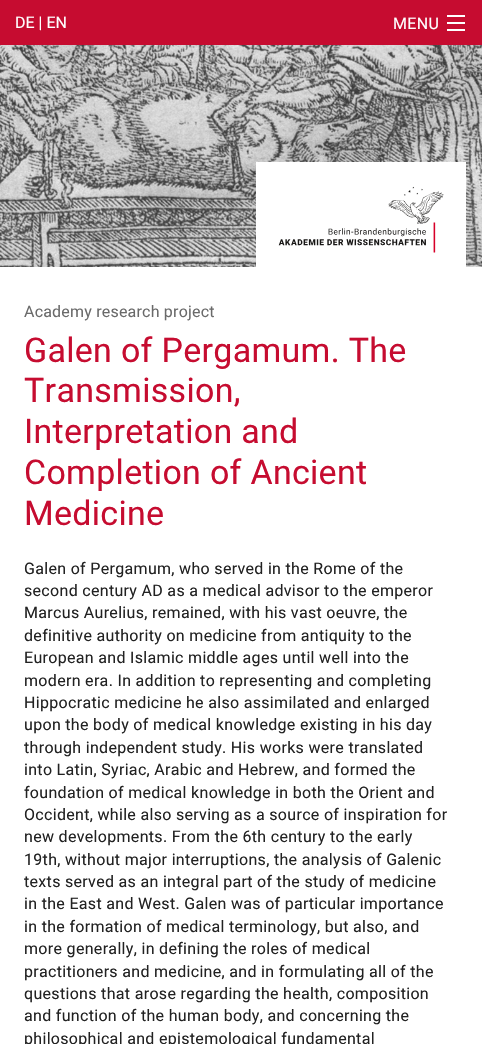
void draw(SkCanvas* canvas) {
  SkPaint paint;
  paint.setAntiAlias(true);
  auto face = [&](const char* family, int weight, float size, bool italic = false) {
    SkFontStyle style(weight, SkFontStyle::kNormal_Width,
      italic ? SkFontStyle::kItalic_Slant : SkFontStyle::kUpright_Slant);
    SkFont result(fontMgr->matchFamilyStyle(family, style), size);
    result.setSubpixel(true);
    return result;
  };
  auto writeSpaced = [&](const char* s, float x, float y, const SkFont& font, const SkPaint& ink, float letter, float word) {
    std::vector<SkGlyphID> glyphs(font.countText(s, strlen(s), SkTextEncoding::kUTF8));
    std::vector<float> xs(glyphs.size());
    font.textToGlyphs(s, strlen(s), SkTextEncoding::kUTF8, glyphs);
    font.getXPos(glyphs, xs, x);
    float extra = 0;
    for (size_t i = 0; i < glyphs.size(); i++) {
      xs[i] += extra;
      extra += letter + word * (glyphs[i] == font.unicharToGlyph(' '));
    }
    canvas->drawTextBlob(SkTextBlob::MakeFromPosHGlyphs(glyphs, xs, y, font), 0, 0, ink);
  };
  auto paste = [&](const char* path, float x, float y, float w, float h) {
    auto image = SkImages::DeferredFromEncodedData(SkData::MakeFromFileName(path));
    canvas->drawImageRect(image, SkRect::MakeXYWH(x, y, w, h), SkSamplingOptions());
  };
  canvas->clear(0xffffffff);
  {
    const struct { float x, y, w, h; SkColor color; } items[] = {
      {0, 0, 482, 45, 0xffc60c30},
      {447, 29, 18, 2, 0xffffffff},
      {447, 22, 18, 2, 0xffffffff},
      {447, 15, 18, 2, 0xffffffff},
    };
    for (auto [x, y, w, h, color] : items) {
      paint.setColor(color);
      canvas->drawRect(SkRect::MakeXYWH(x, y, w, h), paint);
    }
  }
  paste("img/1.png", 0, 45, 482, 222);
  canvas->drawRect(SkRect::MakeXYWH(256, 162, 210, 105), paint);
  paste("img/2.png", 278, 186, 166, 67);
  auto f0 = face("Roboto", 400, 16);
  canvas->drawString("DE | EN", 15, 28, f0, paint);
  writeSpaced("MENU", 393, 29, f0, paint, 0.32f, 0);
  paint.setColor(0xff6a6a6a);
  writeSpaced("Academy research project", 24, 317, f0, paint, 0.2f, 0);
  auto f1 = face("Roboto", 400, 34);
  paint.setColor(0xffc60c30);
  {
    const struct { const char* s; float x, y; } items[] = {
      {"Galen of Pergamum. The", 24, 362},
      {"Transmission,", 24, 402},
      {"Interpretation and", 24, 443},
      {"Completion of Ancient", 24, 484},
      {"Medicine", 24, 525},
    };
    for (auto [s, x, y] : items) {
      writeSpaced(s, x, y, f1, paint, 0.3f, 0);
    }
  }
  paint.setColor(0xff222222);
  {
    const struct { const char* s; float x, y; } items[] = {
      {"Galen of Pergamum, who served in the Rome of the", 24, 574},
      {"second century AD as a medical advisor to the emperor", 24, 596},
      {"Marcus Aurelius, remained, with his vast oeuvre, the", 24, 618},
      {"definitive authority on medicine from antiquity to the", 24, 641},
      {"European and Islamic middle ages until well into the", 24, 663},
      {"modern era. In addition to representing and completing", 24, 686},
      {"Hippocratic medicine he also assimilated and enlarged", 24, 708},
      {"upon the body of medical knowledge existing in his day", 24, 730},
      {"through independent study. His works were translated", 24, 753},
      {"into Latin, Syriac, Arabic and Hebrew, and formed the", 24, 775},
      {"foundation of medical knowledge in both the Orient and", 24, 798},
      {"Occident, while also serving as a source of inspiration for", 24, 820},
      {"new developments. From the 6th century to the early", 24, 842},
      {"19th, without major interruptions, the analysis of Galenic", 24, 865},
      {"texts served as an integral part of the study of medicine", 24, 887},
      {"in the East and West. Galen was of particular importance", 24, 909},
      {"in the formation of medical terminology, but also, and", 24, 932},
      {"more generally, in defining the roles of medical", 24, 954},
      {"practitioners and medicine, and in formulating all of the", 24, 977},
      {"questions that arose regarding the health, composition", 24, 999},
      {"and function of the human body, and concerning the", 24, 1021},
      {"philosophical and epistemological fundamental", 24, 1044},
    };
    for (auto [s, x, y] : items) {
      writeSpaced(s, x, y, f0, paint, 0.32f, 0);
    }
  }
}
